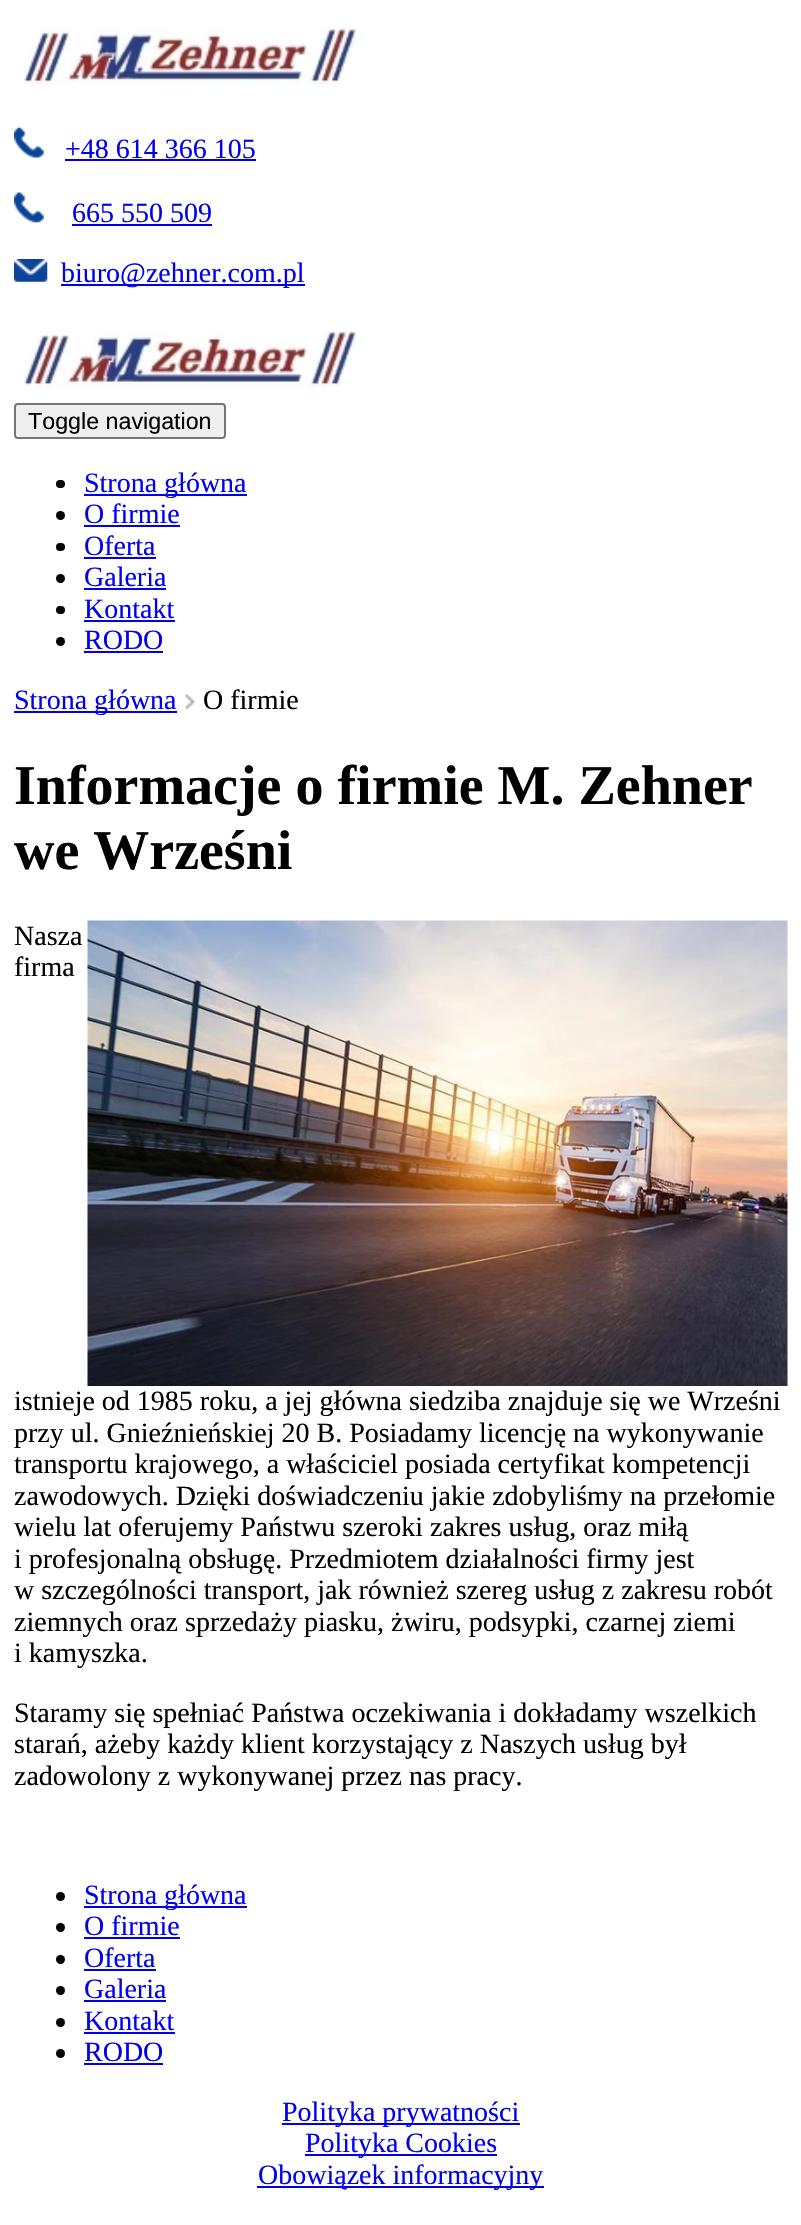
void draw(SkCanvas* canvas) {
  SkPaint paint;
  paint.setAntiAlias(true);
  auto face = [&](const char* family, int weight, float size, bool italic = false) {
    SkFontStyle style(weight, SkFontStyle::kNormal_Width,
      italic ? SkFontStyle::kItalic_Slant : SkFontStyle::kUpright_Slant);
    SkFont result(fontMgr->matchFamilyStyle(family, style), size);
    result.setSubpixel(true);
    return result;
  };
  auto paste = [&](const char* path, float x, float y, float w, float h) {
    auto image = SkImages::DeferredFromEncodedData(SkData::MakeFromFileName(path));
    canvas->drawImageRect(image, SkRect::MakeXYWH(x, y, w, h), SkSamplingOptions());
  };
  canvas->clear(0xffffffff);
  paste("img/1.png", 23, 28, 341, 57);
  paste("img/2.png", 14, 127, 30, 31);
  paint.setColor(0xff0000ee);
  canvas->drawRect(SkRect::MakeXYWH(65, 159, 191, 2), paint);
  paste("img/3.png", 14, 192, 30, 31);
  canvas->drawRect(SkRect::MakeXYWH(72, 224, 140, 2), paint);
  paste("img/4.png", 14, 259, 34, 23);
  canvas->drawRect(SkRect::MakeXYWH(61, 284, 244, 2), paint);
  paste("img/5.png", 23, 330, 341, 58);
  paint.setColor(0xffefefef);
  canvas->drawRoundRect(SkRect::MakeXYWH(15, 404, 210, 34), 3, 3, paint);
  paint.setStroke(true);
  paint.setStrokeWidth(2);
  paint.setColor(0xff767676);
  canvas->drawRoundRect(SkRect::MakeXYWH(15, 404, 210, 34), 3, 3, paint);
  paint.setStroke(false);
  paint.setColor(0xff000000);
  canvas->drawRoundRect(SkRect::MakeXYWH(56, 480, 9, 8), 4, 4, paint);
  paint.setColor(0xff0000ee);
  canvas->drawRect(SkRect::MakeXYWH(84, 494, 163, 2), paint);
  paint.setColor(0xff000000);
  canvas->drawCircle(60.5f, 515.5f, 4.5f, paint);
  paint.setColor(0xff0000ee);
  canvas->drawRect(SkRect::MakeXYWH(84, 525, 96, 2), paint);
  paint.setColor(0xff000000);
  canvas->drawRoundRect(SkRect::MakeXYWH(56, 543, 9, 8), 4, 4, paint);
  paint.setColor(0xff0000ee);
  canvas->drawRect(SkRect::MakeXYWH(84, 557, 72, 2), paint);
  paint.setColor(0xff000000);
  canvas->drawCircle(60.5f, 578.5f, 4.5f, paint);
  paint.setColor(0xff0000ee);
  canvas->drawRect(SkRect::MakeXYWH(84, 588, 82, 2), paint);
  paint.setColor(0xff000000);
  canvas->drawRoundRect(SkRect::MakeXYWH(56, 606, 9, 8), 4, 4, paint);
  paint.setColor(0xff0000ee);
  canvas->drawRect(SkRect::MakeXYWH(84, 620, 91, 2), paint);
  paint.setColor(0xff000000);
  canvas->drawCircle(60.5f, 641.5f, 4.5f, paint);
  paint.setColor(0xff0000ee);
  canvas->drawRect(SkRect::MakeXYWH(84, 651, 79, 2), paint);
  canvas->drawRect(SkRect::MakeXYWH(14, 711, 163, 2), paint);
  paste("img/6.png", 185, 694, 10, 15);
  paste("img/7.png", 87, 920, 701, 466);
  paint.setColor(0xff000000);
  canvas->drawCircle(60.5f, 1896.5f, 4.5f, paint);
  paint.setColor(0xff0000ee);
  canvas->drawRect(SkRect::MakeXYWH(84, 1906, 163, 2), paint);
  paint.setColor(0xff000000);
  canvas->drawCircle(60.5f, 1927.5f, 4.5f, paint);
  paint.setColor(0xff0000ee);
  canvas->drawRect(SkRect::MakeXYWH(84, 1937, 96, 2), paint);
  paint.setColor(0xff000000);
  canvas->drawCircle(60.5f, 1959.5f, 4.5f, paint);
  paint.setColor(0xff0000ee);
  canvas->drawRect(SkRect::MakeXYWH(84, 1969, 72, 2), paint);
  paint.setColor(0xff000000);
  canvas->drawCircle(60.5f, 1990.5f, 4.5f, paint);
  paint.setColor(0xff0000ee);
  canvas->drawRect(SkRect::MakeXYWH(84, 2000, 82, 2), paint);
  paint.setColor(0xff000000);
  canvas->drawCircle(60.5f, 2022.5f, 4.5f, paint);
  paint.setColor(0xff0000ee);
  canvas->drawRect(SkRect::MakeXYWH(84, 2032, 91, 2), paint);
  paint.setColor(0xff000000);
  canvas->drawCircle(60.5f, 2053.5f, 4.5f, paint);
  {
    const struct { float x, y, w, h; SkColor color; } items[] = {
      {84, 2063, 79, 2, 0xff0000ee},
      {282, 2123, 238, 2, 0xff0000ee},
      {305, 2154, 192, 2, 0xff0000ee},
      {257, 2186, 287, 2, 0xff0000ee},
    };
    for (auto [x, y, w, h, color] : items) {
      paint.setColor(color);
      canvas->drawRect(SkRect::MakeXYWH(x, y, w, h), paint);
    }
  }
  auto f0 = face("Liberation Serif", 400, 28);
  {
    const struct { const char* s; float x, y; } items[] = {
      {"+48 614 366 105", 65, 158},
      {"665 550 509", 72, 222},
      {"biuro@zehner.com.pl", 61, 282},
    };
    for (auto [s, x, y] : items) {
      canvas->drawString(s, x, y, f0, paint);
    }
  }
  auto f1 = face("Liberation Sans", 400, 23.25f);
  paint.setColor(0xff000000);
  canvas->drawString("Toggle navigation", 28, 429, f1, paint);
  paint.setColor(0xff0000ee);
  {
    const struct { const char* s; float x, y; } items[] = {
      {"Strona główna", 84, 492},
      {"O firmie", 84, 523},
      {"Oferta", 84, 555},
      {"Galeria", 84, 586},
      {"Kontakt", 84, 618},
      {"RODO", 84, 649},
      {"Strona główna", 14, 709},
    };
    for (auto [s, x, y] : items) {
      canvas->drawString(s, x, y, f0, paint);
    }
  }
  paint.setColor(0xff000000);
  canvas->drawString("O firmie", 203, 709, f0, paint);
  auto f2 = face("Liberation Serif", 700, 56);
  canvas->drawString("Informacje o firmie M. Zehner", 14, 804, f2, paint);
  canvas->drawString("we Wrześni", 14, 869, f2, paint);
  {
    const struct { const char* s; float x, y; } items[] = {
      {"Nasza", 14, 945},
      {"firma", 14, 976},
      {"istnieje od 1985 roku, a jej główna siedziba znajduje się we Wrześni", 14, 1410},
      {"przy ul. Gnieźnieńskiej 20 B. Posiadamy licencję na wykonywanie", 14, 1442},
      {"transportu krajowego, a właściciel posiada certyfikat kompetencji", 14, 1473},
      {"zawodowych. Dzięki doświadczeniu jakie zdobyliśmy na przełomie", 14, 1505},
      {"wielu lat oferujemy Państwu szeroki zakres usług, oraz miłą", 14, 1536},
      {"i profesjonalną obsługę. Przedmiotem działalności firmy jest", 14, 1568},
      {"w szczególności transport, jak również szereg usług z zakresu robót", 14, 1599},
      {"ziemnych oraz sprzedaży piasku, żwiru, podsypki, czarnej ziemi", 14, 1631},
      {"i kamyszka.", 14, 1662},
      {"Staramy się spełniać Państwa oczekiwania i dokładamy wszelkich", 14, 1722},
      {"starań, ażeby każdy klient korzystający z Naszych usług był", 14, 1753},
      {"zadowolony z wykonywanej przez nas pracy.", 14, 1785},
    };
    for (auto [s, x, y] : items) {
      canvas->drawString(s, x, y, f0, paint);
    }
  }
  paint.setColor(0xff0000ee);
  {
    const struct { const char* s; float x, y; } items[] = {
      {"Strona główna", 84, 1904},
      {"O firmie", 84, 1935},
      {"Oferta", 84, 1967},
      {"Galeria", 84, 1998},
      {"Kontakt", 84, 2030},
      {"RODO", 84, 2061},
      {"Polityka prywatności", 282, 2121},
      {"Polityka Cookies", 305, 2152},
      {"Obowiązek informacyjny", 258, 2184},
    };
    for (auto [s, x, y] : items) {
      canvas->drawString(s, x, y, f0, paint);
    }
  }
}
